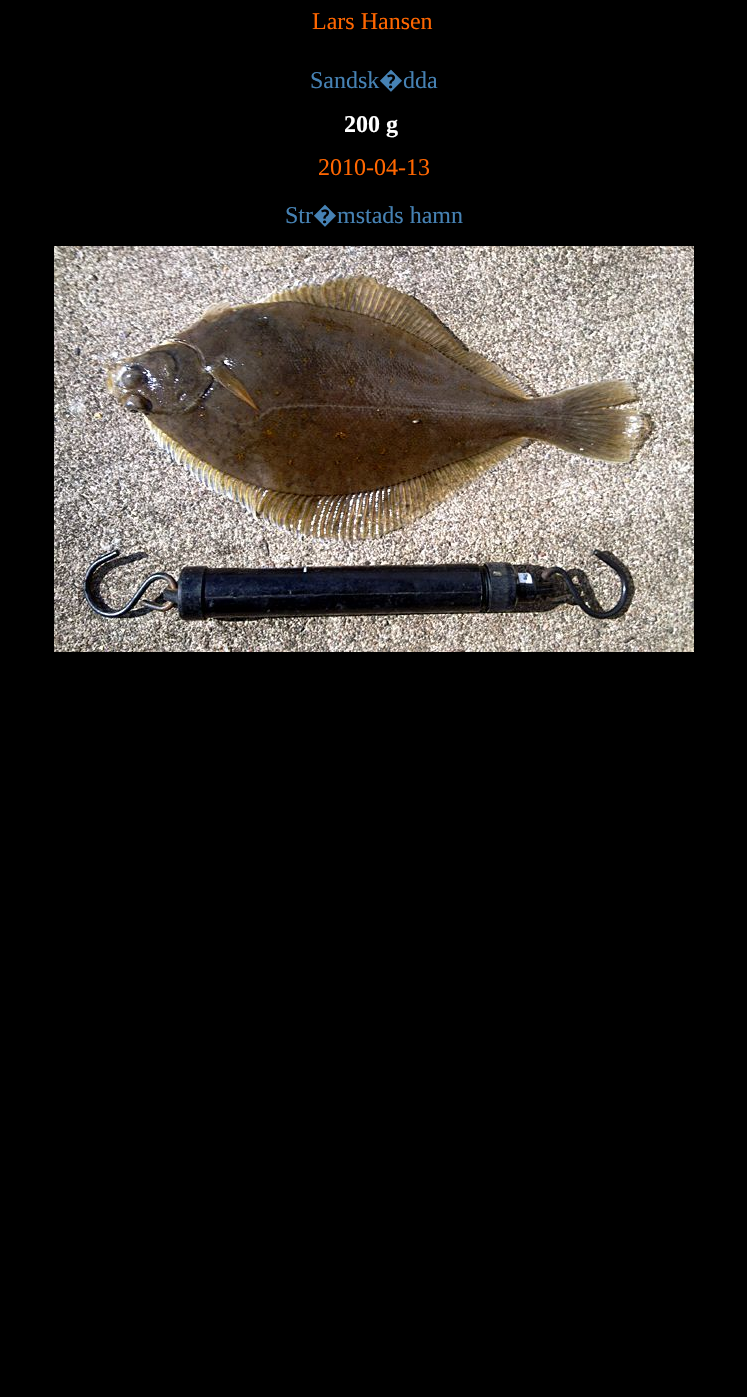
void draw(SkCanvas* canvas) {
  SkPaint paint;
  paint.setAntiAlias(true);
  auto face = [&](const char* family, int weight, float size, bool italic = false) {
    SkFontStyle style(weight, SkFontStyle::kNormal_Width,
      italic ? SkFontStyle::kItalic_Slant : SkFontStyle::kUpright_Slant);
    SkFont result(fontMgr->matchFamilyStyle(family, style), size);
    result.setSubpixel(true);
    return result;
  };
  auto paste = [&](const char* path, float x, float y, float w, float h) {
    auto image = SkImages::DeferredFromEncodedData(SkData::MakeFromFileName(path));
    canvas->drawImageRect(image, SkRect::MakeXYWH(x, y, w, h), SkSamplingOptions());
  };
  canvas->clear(0xff000000);
  paste("img/1.png", 54, 246, 640, 406);
  auto f0 = face("Liberation Serif", 400, 24);
  paint.setColor(0xffff6600);
  canvas->drawString("Lars Hansen", 312, 29, f0, paint);
  paint.setColor(0xff4682b4);
  canvas->drawString("Sandsk", 310, 88, f0, paint);
  auto f1 = face("Noto Sans", 400, 24);
  canvas->drawString("�", 379, 88, f1, paint);
  canvas->drawString("dda", 403, 88, f0, paint);
  auto f2 = face("Liberation Serif", 700, 24);
  paint.setColor(0xffffffff);
  canvas->drawString("200 g", 344, 132, f2, paint);
  paint.setColor(0xffff6600);
  canvas->drawString("2010-04-13", 318, 175, f0, paint);
  paint.setColor(0xff4682b4);
  canvas->drawString("Str", 285, 223, f0, paint);
  canvas->drawString("�", 313, 223, f1, paint);
  canvas->drawString("mstads hamn", 337, 223, f0, paint);
}
